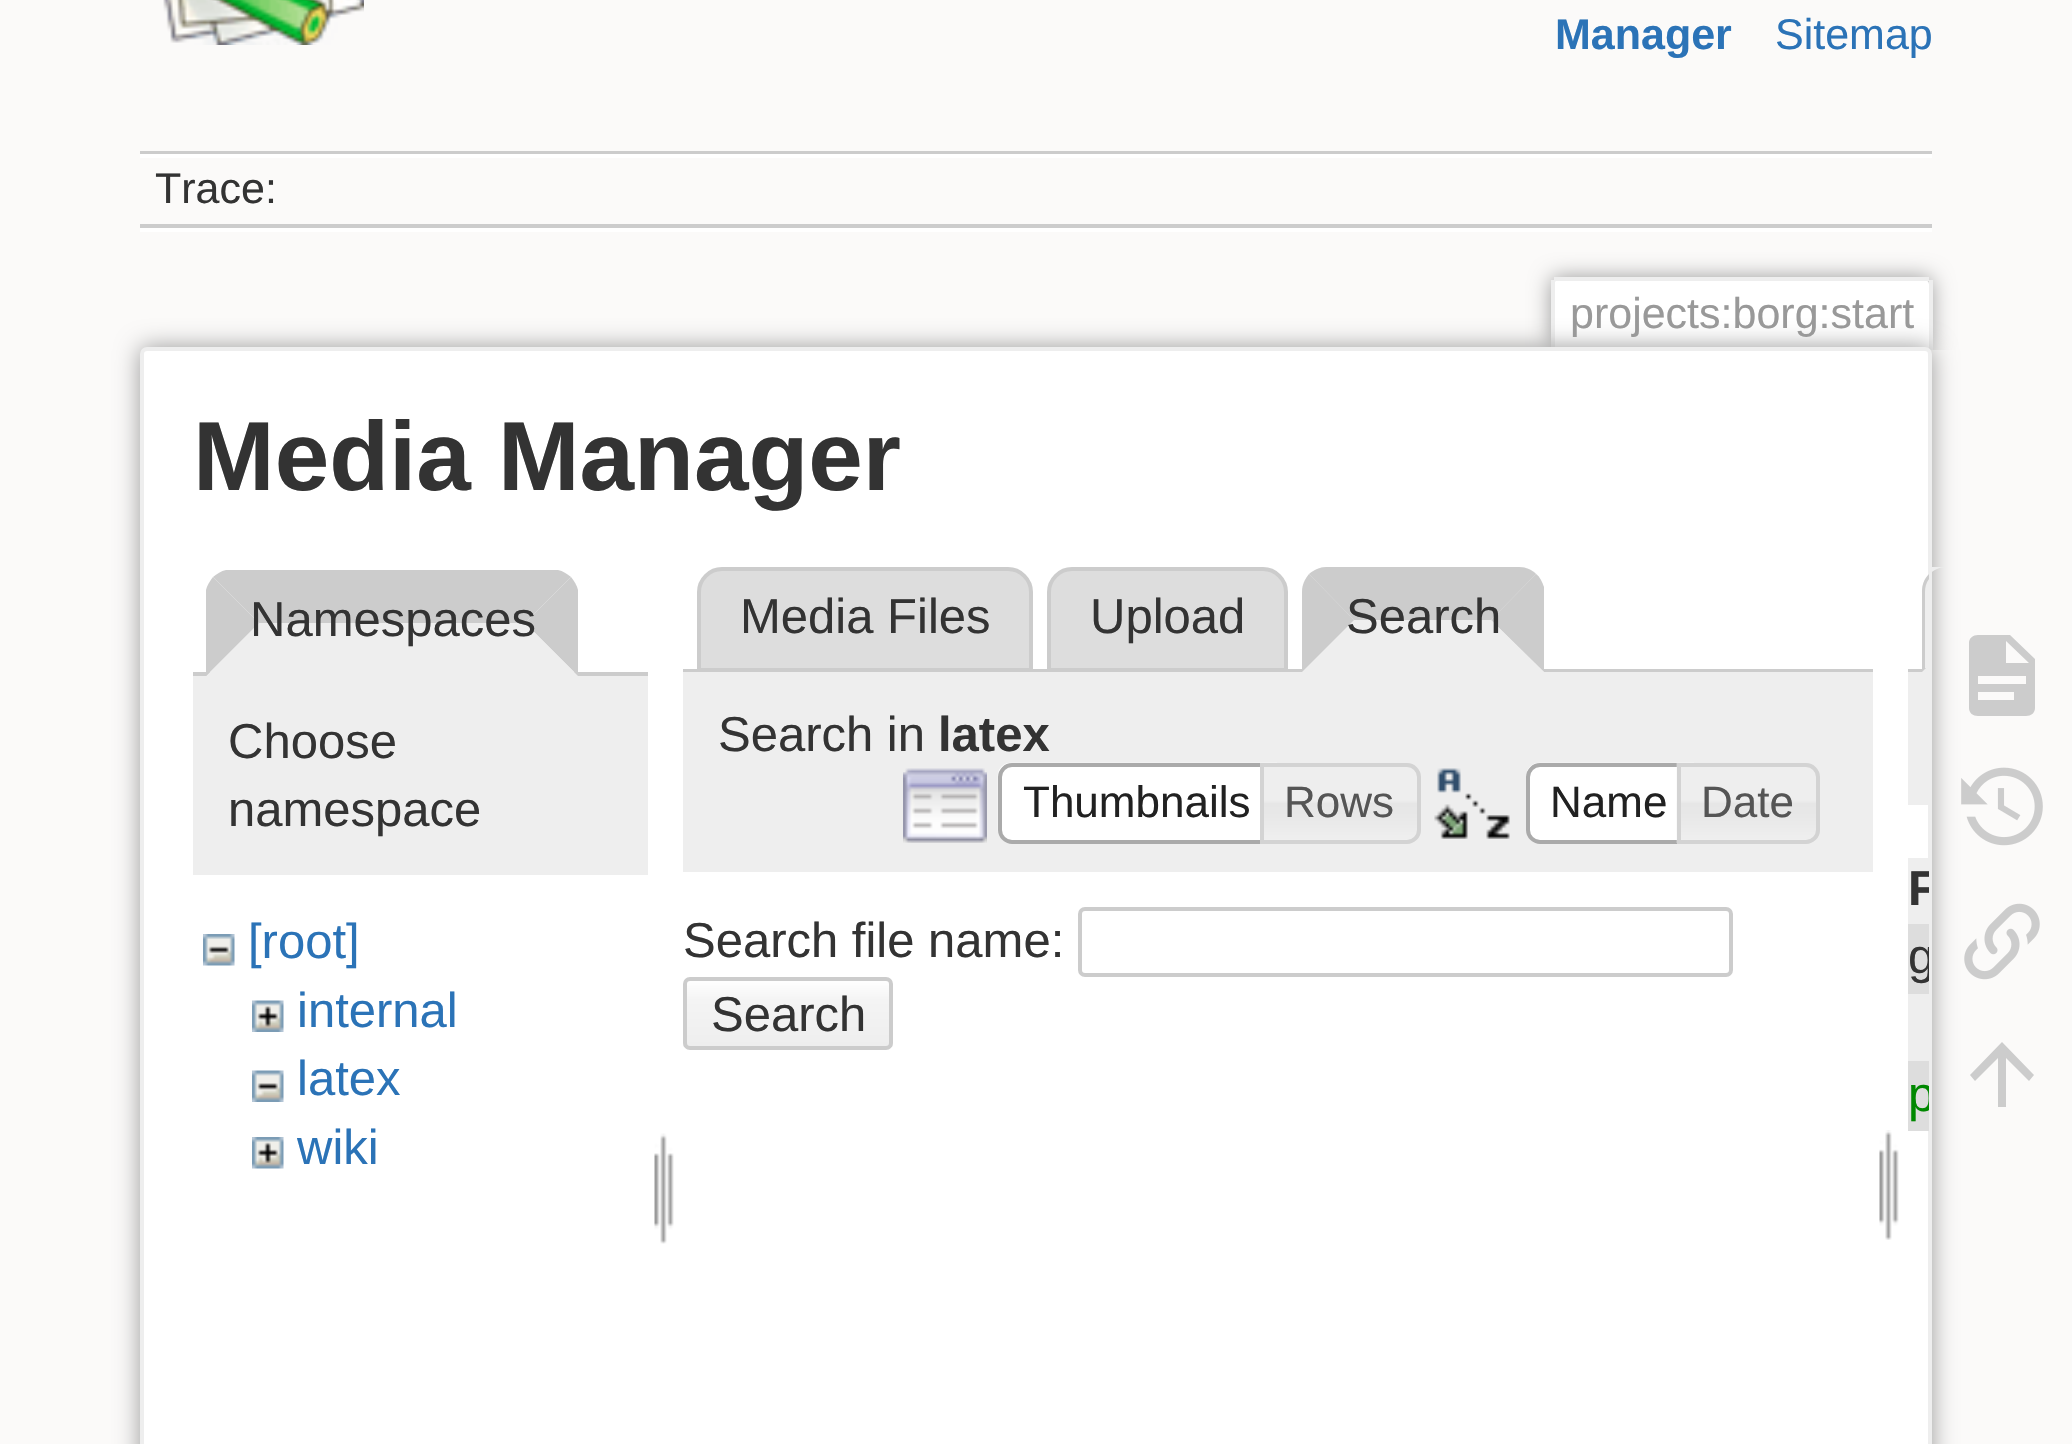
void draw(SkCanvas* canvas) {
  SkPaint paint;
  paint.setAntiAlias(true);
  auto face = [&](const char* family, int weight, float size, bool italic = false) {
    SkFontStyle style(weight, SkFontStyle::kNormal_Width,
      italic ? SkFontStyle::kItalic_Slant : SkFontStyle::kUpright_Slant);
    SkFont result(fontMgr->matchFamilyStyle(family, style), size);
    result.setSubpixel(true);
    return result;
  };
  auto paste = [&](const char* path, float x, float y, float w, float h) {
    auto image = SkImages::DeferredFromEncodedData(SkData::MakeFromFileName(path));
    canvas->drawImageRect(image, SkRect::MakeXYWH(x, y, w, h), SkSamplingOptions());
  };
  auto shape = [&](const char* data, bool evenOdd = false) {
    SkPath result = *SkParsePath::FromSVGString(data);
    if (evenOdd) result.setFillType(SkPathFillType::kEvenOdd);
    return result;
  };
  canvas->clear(0xfffbfaf9);
  paste("img/1.png", 163, 0, 201, 45);
  {
    const struct { float x, y, w, h; SkColor color; } items[] = {
      {140, 151, 1792, 3, 0xffcccccc},
      {140, 228, 1792, 4, 0xffffffff},
      {140, 154, 1792, 4, 0xffffffff},
      {140, 224, 1792, 4, 0xffcccccc},
    };
    for (auto [x, y, w, h, color] : items) {
      paint.setColor(color);
      canvas->drawRect(SkRect::MakeXYWH(x, y, w, h), paint);
    }
  }
  canvas->save();
  canvas->clipRect(SkRect::MakeXYWH(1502, 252, 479, 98));
  paint.setColor(0xff999999);
  paint.setMaskFilter(SkMaskFilter::MakeBlur(kNormal_SkBlurStyle, 10.5f));
  canvas->drawRoundRect(SkRect::MakeXYWH(1551, 277, 381, 73), 7, 7, paint);
  paint.setMaskFilter(nullptr);
  canvas->restore();
  paint.setColor(0xffffffff);
  canvas->drawPath(shape("M1558 280H1925C1927 280 1929 282 1929 284V350H1554V284C1554 282 1556 280 1558 280Z"), paint);
  {
    const struct { float x, y, w, h; SkColor color; } items[] = {
      {1554, 277, 375, 4, 0xffeeeeee},
      {1929, 280, 4, 70, 0xffeeeeee},
      {1551, 280, 4, 70, 0xffeeeeee},
    };
    for (auto [x, y, w, h, color] : items) {
      paint.setColor(color);
      canvas->drawRect(SkRect::MakeXYWH(x, y, w, h), paint);
    }
  }
  paint.setColor(0xff999999);
  paint.setMaskFilter(SkMaskFilter::MakeBlur(kNormal_SkBlurStyle, 12));
  canvas->drawRoundRect(SkRect::MakeXYWH(140, 347, 1792, 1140), 7, 7, paint);
  paint.setMaskFilter(nullptr);
  paint.setColor(0xffffffff);
  canvas->drawRoundRect(SkRect::MakeXYWH(142, 349, 1788, 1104), 5, 5, paint);
  paint.setStroke(true);
  paint.setStrokeWidth(4);
  paint.setColor(0xffeeeeee);
  canvas->drawRoundRect(SkRect::MakeXYWH(142, 349, 1788, 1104), 5, 5, paint);
  paint.setStroke(false);
  paint.setColor(0xffcccccc);
  canvas->drawPath(shape("M558 570H226C221 571 217 574 213 577L259 623H525L571 577C567 574 563 571 558 570Z"), paint);
  canvas->drawRect(SkRect::MakeXYWH(193, 672, 455, 4), paint);
  canvas->drawPath(shape("M571 577L525 623L578 676V590C577 585 574 581 571 577Z"), paint);
  paint.setColor(0xffeeeeee);
  canvas->drawPath(shape("M578 676L525 623H259L206 676Z"), paint);
  paint.setColor(0xffcccccc);
  canvas->drawPath(shape("M206 676L259 623L213 577C210 581 207 585 206 590Z"), paint);
  paint.setColor(0xffeeeeee);
  canvas->drawRect(SkRect::MakeXYWH(193, 676, 455, 199), paint);
  paste("img/2.png", 203, 934, 32, 32);
  paste("img/3.png", 252, 1000, 32, 32);
  paste("img/4.png", 252, 1070, 32, 32);
  paste("img/5.png", 252, 1137, 32, 32);
  paste("img/6.png", 654, 1133, 20, 111);
  paint.setColor(0xffdddddd);
  canvas->drawPath(shape("M722 569H1008C1020.5 569 1031 579.5 1031 592V670H699V592C699 579.5 709.5 569 722 569Z"), paint);
  paint.setStroke(true);
  paint.setColor(0xffcccccc);
  canvas->drawPath(shape("M722 569H1008C1020.5 569 1031 579.5 1031 592V670H699V592C699 579.5 709.5 569 722 569Z"), paint);
  paint.setStroke(false);
  paint.setColor(0xffdddddd);
  canvas->drawPath(shape("M1072 569H1263C1275.5 569 1286 579.5 1286 592V670H1049V592C1049 579.5 1059.5 569 1072 569Z"), paint);
  paint.setStroke(true);
  paint.setColor(0xffcccccc);
  canvas->drawPath(shape("M1072 569H1263C1275.5 569 1286 579.5 1286 592V670H1049V592C1049 579.5 1059.5 569 1072 569Z"), paint);
  paint.setStroke(false);
  canvas->drawRect(SkRect::MakeXYWH(683, 669, 1190, 3), paint);
  paint.setColor(0xffeeeeee);
  canvas->drawPath(shape("M1327 567H1519C1533 567 1544 578 1544 592V672H1302V592C1302 578 1313 567 1327 567Z"), paint);
  paint.setColor(0xffcccccc);
  canvas->drawPath(shape("M1326 567H1519C1526 567 1532 570 1536 574L1491 620H1354L1309 574C1314 570 1320 567 1326 567Z"), paint);
  canvas->drawPath(shape("M1536 574L1491 620L1544 672V587C1542 582 1540 577 1536 574Z"), paint);
  paint.setColor(0xffeeeeee);
  canvas->drawPath(shape("M1544 672L1491 620H1354L1302 672Z"), paint);
  paint.setColor(0xffcccccc);
  canvas->drawPath(shape("M1302 672V592C1302 585 1305 579 1309 574L1354 620Z"), paint);
  paint.setColor(0xffeeeeee);
  canvas->drawRect(SkRect::MakeXYWH(683, 672, 1190, 200), paint);
  paste("img/7.png", 903, 768, 84, 75);
  paint.setColor(0xffffffff);
  canvas->drawPath(shape("M1012 763H1278V844H1012C1004.5 844 998 837.5 998 830V777C998 769.5 1004.5 763 1012 763Z"), paint);
  paste("img/8.png", 997, 762, 280, 73);
  paint.setStroke(true);
  paint.setColor(0xffaaaaaa);
  canvas->drawPath(shape("M1012 765H1276V842H1012C1005.5 842 1000 836.5 1000 830V777C1000 770.5 1005.5 765 1012 765Z"), paint);
  paste("img/9.png", 1264, 763, 157, 78);
  paint.setColor(0xffd3d3d3);
  canvas->drawPath(shape("M1262 765H1407C1413.5 765 1419 770.5 1419 777V830C1419 836.5 1413.5 842 1407 842H1262Z"), paint);
  paste("img/10.png", 1434, 768, 76, 71);
  paint.setStroke(false);
  paint.setColor(0xffffffff);
  canvas->drawPath(shape("M1540 763H1694V844H1540C1532.5 844 1526 837.5 1526 830V777C1526 769.5 1532.5 763 1540 763Z"), paint);
  paste("img/11.png", 1526, 762, 168, 12);
  paint.setStroke(true);
  paint.setColor(0xffaaaaaa);
  canvas->drawPath(shape("M1540 765H1692V842H1540C1533.5 842 1528 836.5 1528 830V777C1528 770.5 1533.5 765 1540 765Z"), paint);
  paste("img/12.png", 1676, 763, 144, 80);
  paint.setColor(0xffd3d3d3);
  canvas->drawPath(shape("M1679 765H1806C1812.5 765 1818 770.5 1818 777V830C1818 836.5 1812.5 842 1806 842H1679Z"), paint);
  paint.setColor(0xffcccccc);
  canvas->drawRoundRect(SkRect::MakeXYWH(1080, 909, 651, 66), 5, 5, paint);
  canvas->save();
  canvas->clipPath(shape("M690 977H886C890 977 893 980 893 984V1043C893 1047 890 1050 886 1050H690C686 1050 683 1047 683 1043V984C683 980 686 977 690 977Z"), true);
  paint.setStroke(false);
  {
    const SkColor colors[] = {0xffffffff, 0xfff4f4f4, 0xffeeeeee, 0xffcccccc};
    const float stops[] = {0, 0.3f, 0.99f, 0.99f};
    const SkPoint ends[] = {{788, 980}, {788, 1047}};
    paint.setShader(SkGradientShader::MakeLinear(ends, colors, stops, 4, SkTileMode::kClamp));
    paint.setAlpha(255);
  }
  canvas->drawRect(SkRect::MakeXYWH(683, 980, 210, 67), paint);
  canvas->restore();
  paint.setStroke(true);
  paint.setShader(nullptr);
  paint.setColor(0xffcccccc);
  canvas->drawRoundRect(SkRect::MakeXYWH(685, 979, 206, 69), 5, 5, paint);
  paste("img/13.png", 1879, 1130, 20, 110);
  paint.setStroke(false);
  canvas->drawRect(SkRect::MakeXYWH(1908, 669, 21, 3), paint);
  paint.setColor(0xffeeeeee);
  canvas->drawPath(shape("M1947 567H1929V672H1922V592C1922 578 1933 567 1947 567Z"), paint);
  paint.setColor(0xffcccccc);
  canvas->drawPath(shape("M1926 668L1922 672V592C1922 585 1924 579 1929 574V579C1926 583 1925 587 1925 592V668Z"), paint);
  {
    const struct { float x, y, w, h; SkColor color; } items[] = {
      {1908, 672, 20, 133, 0xffeeeeee},
      {1908, 858, 20, 66, 0xffeeeeee},
      {1908, 924, 21, 70, 0xffdddddd},
      {1908, 994, 20, 67, 0xffeeeeee},
      {1908, 1061, 21, 70, 0xffdddddd},
    };
    for (auto [x, y, w, h, color] : items) {
      paint.setColor(color);
      canvas->drawRect(SkRect::MakeXYWH(x, y, w, h), paint);
    }
  }
  paint.setColor(0xffcccccc);
  canvas->drawPath(shape("M2006 663H2029L2006 641V663M1978 635H2010L2035 659V708C2035 713 2031 716 2026 716H1978C1973 716 1969 713 1969 708V643C1969 638 1973 635 1978 635M2014 700V692H1978V700H2014M2026 684V676H1978V684Z"), paint);
  paste("img/14.png", 1961, 767, 82, 79);
  paste("img/15.png", 1964, 903, 76, 77);
  canvas->drawPath(shape("M2006 1107H1998V1058L1975 1081L1970 1075L2002 1042L2034 1075L2029 1081L2006 1058Z"), paint);
  auto f0 = face("Liberation Sans", 700, 43);
  paint.setColor(0xff2b73b7);
  canvas->drawString("Manager", 1555, 49, f0, paint);
  auto f1 = face("Liberation Sans", 400, 43);
  canvas->drawString("Sitemap", 1775, 49, f1, paint);
  paint.setColor(0xff333333);
  canvas->drawString("Trace:", 155, 203, f1, paint);
  paint.setColor(0xff999999);
  canvas->drawString("projects:borg:start", 1570, 328, f1, paint);
  auto f2 = face("Liberation Sans", 700, 98);
  paint.setColor(0xff333333);
  canvas->drawString("Media Manager", 193, 490, f2, paint);
  auto f3 = face("Liberation Sans", 400, 49);
  {
    const struct { const char* s; float x, y; } items[] = {
      {"Namespaces", 250, 636},
      {"Choose", 228, 758},
      {"namespace", 228, 826},
    };
    for (auto [s, x, y] : items) {
      canvas->drawString(s, x, y, f3, paint);
    }
  }
  paint.setColor(0xff2b73b7);
  {
    const struct { const char* s; float x, y; } items[] = {
      {"[root]", 248, 958},
      {"internal", 297, 1027},
      {"latex", 297, 1095},
      {"wiki", 297, 1164},
    };
    for (auto [s, x, y] : items) {
      canvas->drawString(s, x, y, f3, paint);
    }
  }
  paint.setColor(0xff333333);
  {
    const struct { const char* s; float x, y; } items[] = {
      {"Media Files", 740, 633},
      {"Upload", 1090, 633},
      {"Search", 1346, 633},
      {"Search in", 718, 751},
    };
    for (auto [s, x, y] : items) {
      canvas->drawString(s, x, y, f3, paint);
    }
  }
  auto f4 = face("Liberation Sans", 700, 49);
  canvas->drawString("latex", 938, 751, f4, paint);
  auto f5 = face("Liberation Sans", 400, 44);
  paint.setColor(0xff212121);
  canvas->drawString("Thumbnails", 1023, 817, f5, paint);
  paint.setColor(0xff555555);
  canvas->drawString("Rows", 1284, 817, f5, paint);
  paint.setColor(0xff212121);
  canvas->drawString("Name", 1550, 817, f5, paint);
  paint.setColor(0xff555555);
  canvas->drawString("Date", 1701, 817, f5, paint);
  paint.setColor(0xff333333);
  canvas->drawString("Search file name:", 683, 957, f3, paint);
  canvas->drawString("Search", 711, 1031, f3, paint);
  canvas->save();
  canvas->clipPath(shape("M148 350H1925C1927 350 1929 352 1929 354V1858C1929 1860 1927 1862 1925 1862H148C146 1862 144 1860 144 1858V354C144 352 146 350 148 350Z"), true);
  canvas->drawString("F", 1908, 905, f4, paint);
  canvas->drawString("g", 1908, 973, f3, paint);
  paint.setColor(0xff008800);
  canvas->drawString("p", 1908, 1111, f3, paint);
  canvas->restore();
}
